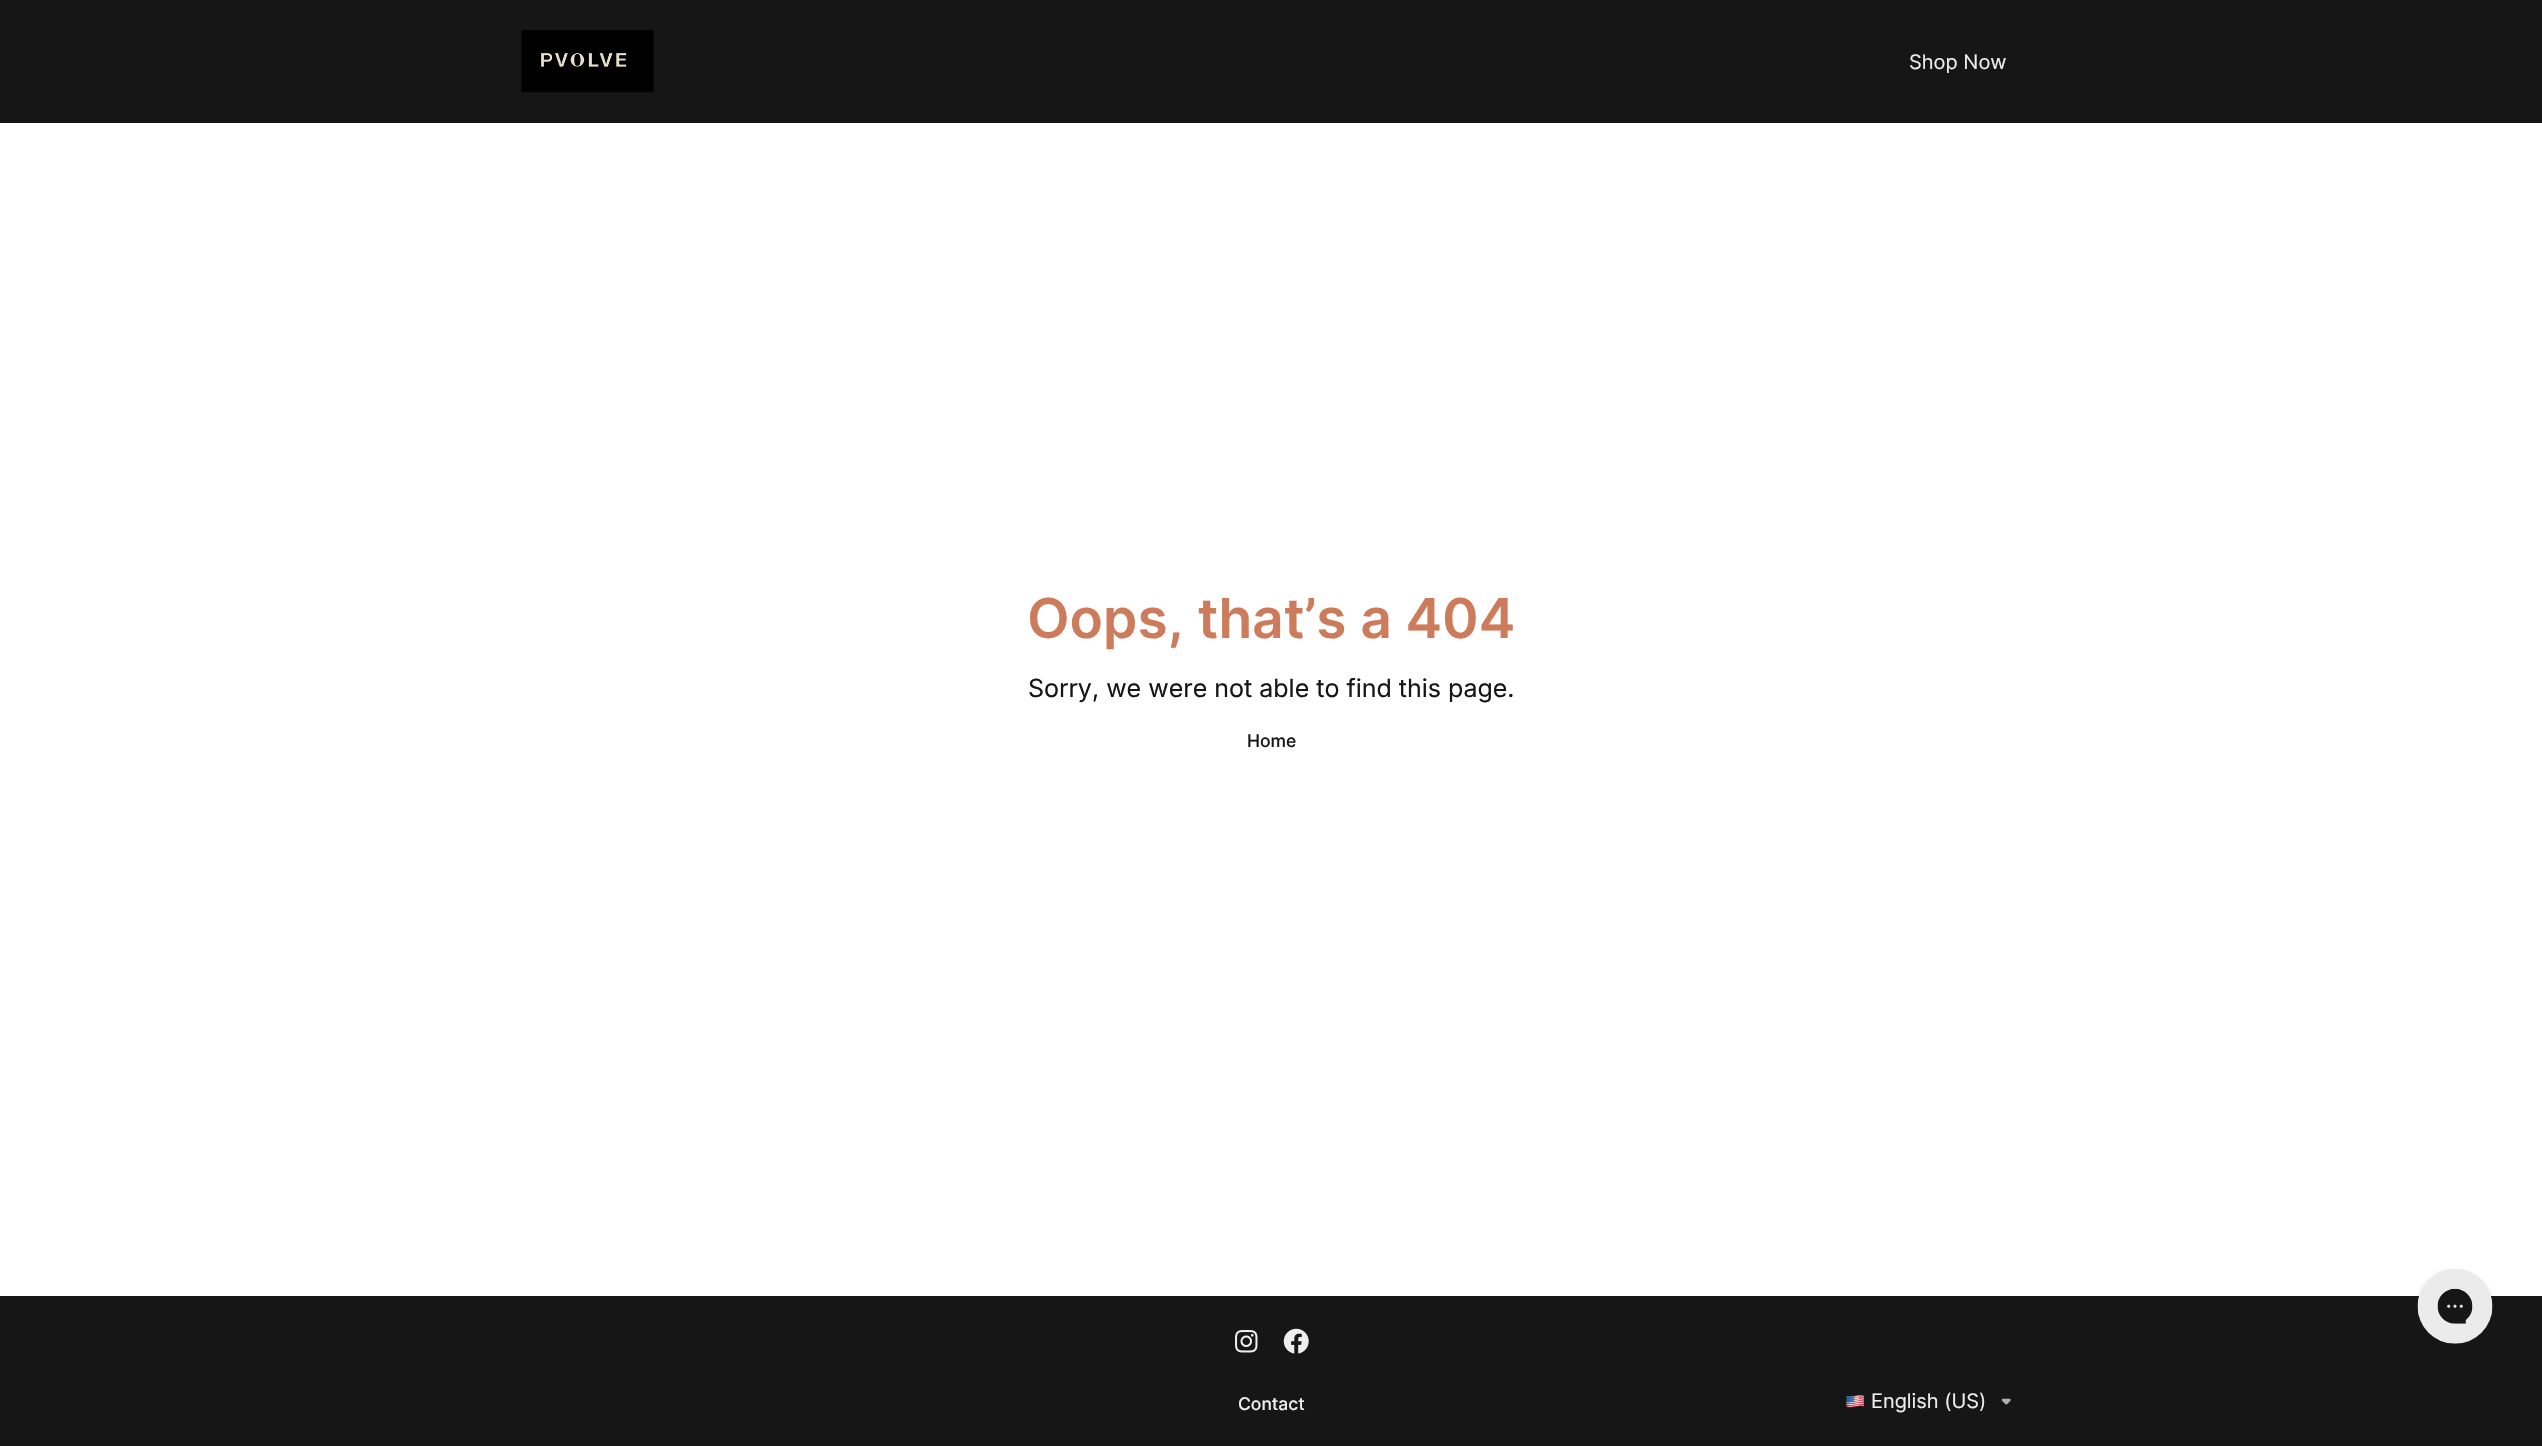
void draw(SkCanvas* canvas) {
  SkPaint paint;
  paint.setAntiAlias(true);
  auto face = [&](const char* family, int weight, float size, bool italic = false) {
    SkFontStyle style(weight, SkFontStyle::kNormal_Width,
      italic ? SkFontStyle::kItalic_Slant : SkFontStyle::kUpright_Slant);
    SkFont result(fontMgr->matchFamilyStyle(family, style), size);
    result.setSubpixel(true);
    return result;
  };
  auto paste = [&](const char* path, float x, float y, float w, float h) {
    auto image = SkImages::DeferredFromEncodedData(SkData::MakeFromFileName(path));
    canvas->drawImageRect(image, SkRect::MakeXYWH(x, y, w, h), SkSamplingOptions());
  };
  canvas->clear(0xffffffff);
  paint.setColor(0xff161616);
  canvas->drawRect(SkRect::MakeXYWH(0, 0, 2542, 123), paint);
  paste("img/1.png", 521, 30, 133, 63);
  canvas->drawRect(SkRect::MakeXYWH(0, 1296, 2542, 150), paint);
  paste("img/2.png", 1235, 1330, 23, 23);
  paste("img/3.png", 1283, 1328, 26, 26);
  paste("img/4.png", 1846, 1394, 19, 14);
  paste("img/5.png", 2001, 1398, 10, 7);
  paste("img/6.png", 2417, 1268, 76, 76);
  auto f0 = face("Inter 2", 400, 20);
  paint.setColor(0xffeeeeee);
  canvas->drawString("Shop Now", 1909, 69, f0, paint);
  auto f1 = face("Inter", 600, 55);
  paint.setColor(0xffcd7c5b);
  canvas->drawString("Oops, that’s a 404", 1027, 638, f1, paint);
  auto f2 = face("Inter", 400, 25);
  paint.setColor(0xff161616);
  canvas->drawString("Sorry, we were not able to find this page.", 1028, 697, f2, paint);
  auto f3 = face("Inter", 500, 17.5f);
  canvas->drawString("Home", 1247, 747, f3, paint);
  paint.setColor(0xffeeeeee);
  canvas->drawString("Contact", 1238, 1410, f3, paint);
  canvas->drawString("English (US)", 1871, 1408, f0, paint);
}
